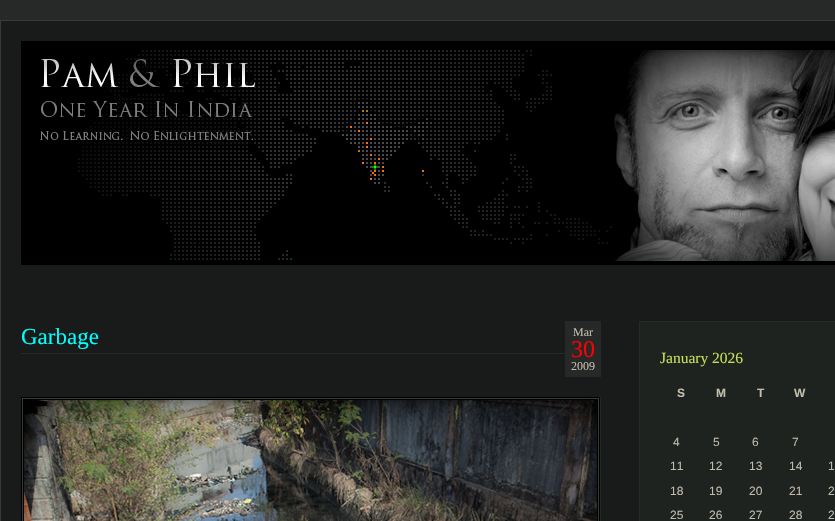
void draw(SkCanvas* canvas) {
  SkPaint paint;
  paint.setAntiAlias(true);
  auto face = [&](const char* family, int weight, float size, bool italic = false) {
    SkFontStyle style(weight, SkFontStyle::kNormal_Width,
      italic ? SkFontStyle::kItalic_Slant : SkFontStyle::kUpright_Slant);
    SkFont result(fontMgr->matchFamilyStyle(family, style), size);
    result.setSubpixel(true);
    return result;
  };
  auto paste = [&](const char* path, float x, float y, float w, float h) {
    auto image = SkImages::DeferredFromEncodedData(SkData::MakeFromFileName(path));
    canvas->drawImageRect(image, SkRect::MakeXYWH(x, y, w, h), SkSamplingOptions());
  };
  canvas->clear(0xff262927);
  paint.setColor(0xff181b19);
  canvas->drawRect(SkRect::MakeXYWH(0.5f, 20.5f, 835, 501), paint);
  paint.setStroke(true);
  paint.setStrokeWidth(1);
  paint.setColor(0xff383c37);
  canvas->drawRect(SkRect::MakeXYWH(0.5f, 20.5f, 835, 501), paint);
  paste("img/1.png", 21, 41, 814, 224);
  paint.setStroke(false);
  paint.setColor(0xff262927);
  canvas->drawRect(SkRect::MakeXYWH(21, 353, 544, 1), paint);
  canvas->drawRect(SkRect::MakeXYWH(565, 321, 36, 56), paint);
  paste("img/2.png", 21, 397, 580, 124);
  paint.setColor(0xff1f2320);
  canvas->drawRect(SkRect::MakeXYWH(639.5f, 321.5f, 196, 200), paint);
  paint.setStroke(true);
  paint.setColor(0xff262927);
  canvas->drawRect(SkRect::MakeXYWH(639.5f, 321.5f, 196, 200), paint);
  auto f0 = face("Liberation Serif", 400, 23);
  paint.setStroke(false);
  paint.setColor(0xff00ffff);
  canvas->drawString("Garbage", 21, 344, f0, paint);
  auto f1 = face("Liberation Serif", 400, 12);
  paint.setColor(0xffc1bcac);
  canvas->drawString("Mar", 573, 336, f1, paint);
  auto f2 = face("Liberation Serif", 400, 24);
  paint.setColor(0xffff0000);
  canvas->drawString("30", 571, 357, f2, paint);
  paint.setColor(0xffc1bcac);
  canvas->drawString("2009", 571, 370, f1, paint);
  auto f3 = face("Liberation Serif", 400, 15.5f);
  paint.setColor(0xffcade58);
  canvas->drawString("January 2026", 660, 363, f3, paint);
  auto f4 = face("Liberation Sans", 700, 12);
  paint.setColor(0xffc1bcac);
  {
    const struct { const char* s; float x, y; } items[] = {
      {"S", 677, 397},
      {"M", 716, 397},
      {"T", 757, 397},
      {"W", 794, 397},
    };
    for (auto [s, x, y] : items) {
      canvas->drawString(s, x, y, f4, paint);
    }
  }
  auto f5 = face("Liberation Sans", 400, 12);
  {
    const struct { const char* s; float x, y; } items[] = {
      {"4", 673, 446},
      {"5", 713, 446},
      {"6", 752, 446},
      {"7", 792, 446},
      {"11", 670, 470},
      {"12", 709, 470},
      {"13", 749, 470},
      {"14", 789, 470},
      {"1", 828, 470},
      {"18", 670, 495},
      {"19", 709, 495},
      {"20", 749, 495},
      {"21", 789, 495},
      {"2", 828, 495},
      {"25", 670, 519},
      {"26", 709, 519},
      {"27", 749, 519},
      {"28", 789, 519},
      {"2", 828, 519},
    };
    for (auto [s, x, y] : items) {
      canvas->drawString(s, x, y, f5, paint);
    }
  }
}
